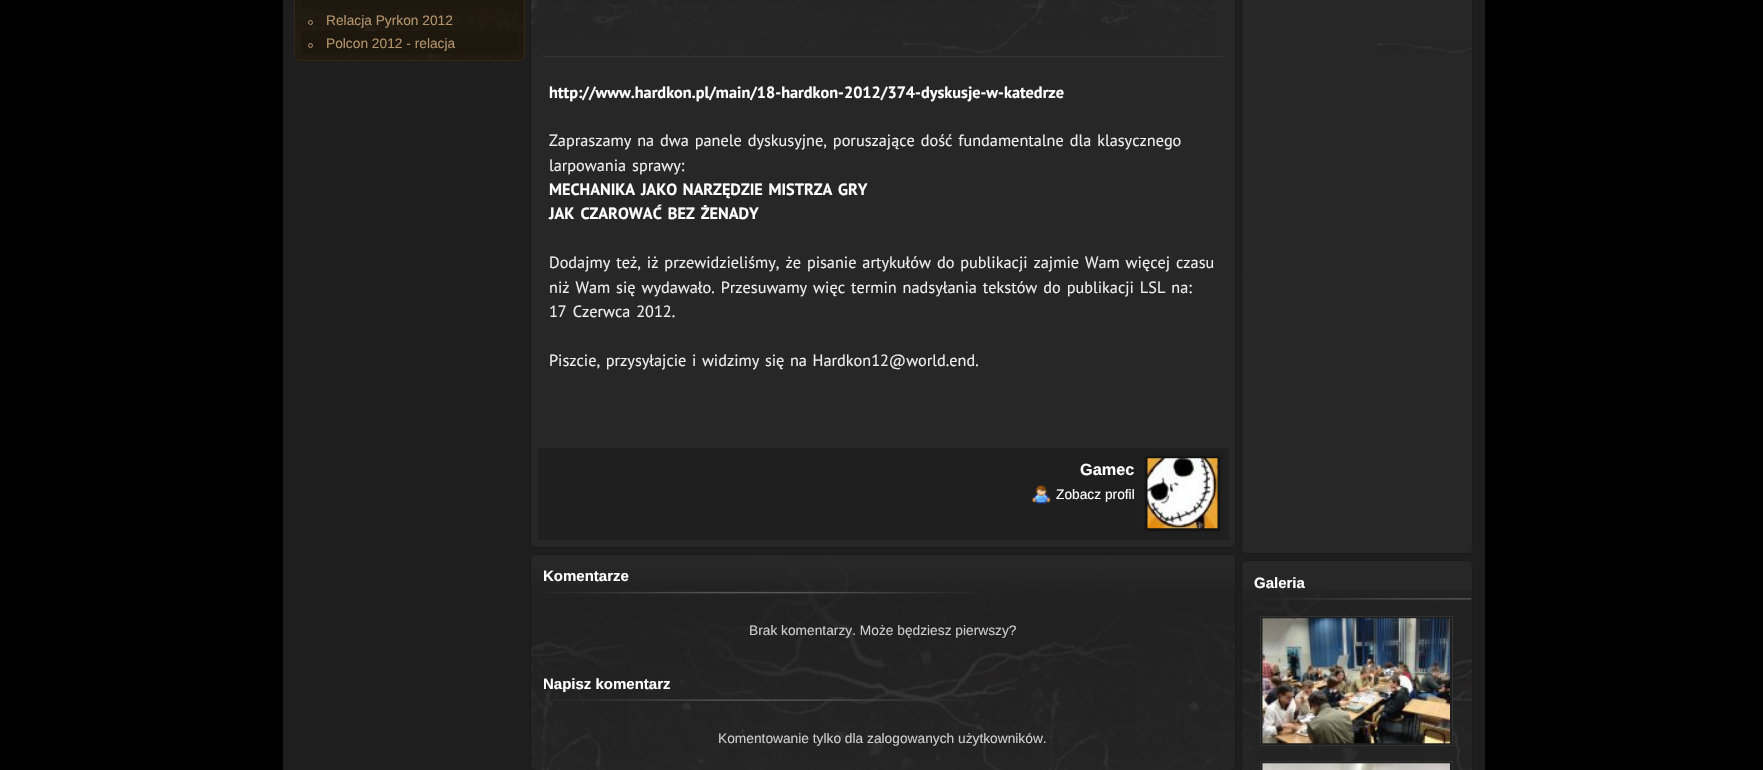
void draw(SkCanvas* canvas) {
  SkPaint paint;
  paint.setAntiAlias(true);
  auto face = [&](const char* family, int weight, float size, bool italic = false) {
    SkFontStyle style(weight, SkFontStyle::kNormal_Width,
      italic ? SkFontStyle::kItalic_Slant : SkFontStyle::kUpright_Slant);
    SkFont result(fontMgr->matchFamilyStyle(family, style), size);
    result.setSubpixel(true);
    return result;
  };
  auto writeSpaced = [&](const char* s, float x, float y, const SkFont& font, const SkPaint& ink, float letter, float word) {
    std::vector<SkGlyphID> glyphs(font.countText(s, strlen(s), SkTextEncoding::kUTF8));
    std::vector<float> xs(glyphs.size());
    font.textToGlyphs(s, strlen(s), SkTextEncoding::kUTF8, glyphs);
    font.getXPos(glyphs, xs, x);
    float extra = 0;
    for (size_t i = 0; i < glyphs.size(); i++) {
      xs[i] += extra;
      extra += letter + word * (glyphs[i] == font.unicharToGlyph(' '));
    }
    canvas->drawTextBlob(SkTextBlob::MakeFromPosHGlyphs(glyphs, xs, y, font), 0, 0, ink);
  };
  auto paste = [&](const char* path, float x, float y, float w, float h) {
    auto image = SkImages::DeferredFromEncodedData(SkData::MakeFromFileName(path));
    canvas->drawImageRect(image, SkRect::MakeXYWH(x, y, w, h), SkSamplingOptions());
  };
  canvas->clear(0xff000000);
  paint.setColor(0xff1e1e1e);
  canvas->drawRect(SkRect::MakeXYWH(283, 0, 1202, 770), paint);
  paste("img/1.png", 294, 0, 231, 60);
  paint.setStroke(true);
  paint.setStrokeWidth(1);
  paint.setColor(0xff322819);
  canvas->drawRoundRect(SkRect::MakeXYWH(294.5f, -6.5f, 230, 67), 5.5f, 5.5f, paint);
  paint.setStroke(false);
  paint.setColor(0xff1d170e);
  canvas->drawRect(SkRect::MakeXYWH(301, 0, 217, 9), paint);
  paint.setStroke(true);
  paint.setColor(0xffb4946b);
  canvas->drawCircle(310.5f, 22.5f, 2, paint);
  paint.setStroke(false);
  paint.setColor(0xff1d170e);
  canvas->drawRect(SkRect::MakeXYWH(301, 31, 217, 23), paint);
  paint.setStroke(true);
  paint.setColor(0xffb4946b);
  canvas->drawCircle(310.5f, 45.5f, 2, paint);
  paint.setStroke(false);
  paint.setColor(0xff272727);
  canvas->drawRoundRect(SkRect::MakeXYWH(530, -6, 706, 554), 6, 6, paint);
  paste("img/2.png", 531, 0, 683, 53);
  paint.setStroke(true);
  paint.setColor(0xff181919);
  canvas->drawRoundRect(SkRect::MakeXYWH(530.5f, -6.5f, 705, 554), 5.5f, 5.5f, paint);
  paint.setStroke(false);
  paint.setColor(0xff333333);
  canvas->drawRect(SkRect::MakeXYWH(544, 56, 679, 1), paint);
  paint.setColor(0xff1f1f1f);
  canvas->drawRect(SkRect::MakeXYWH(538, 448, 691, 92), paint);
  paint.setColor(0xff111111);
  paint.setMaskFilter(SkMaskFilter::MakeBlur(kNormal_SkBlurStyle, 1));
  canvas->drawRect(SkRect::MakeXYWH(1145, 456, 75, 75), paint);
  paint.setMaskFilter(nullptr);
  paste("img/3.png", 1147, 458, 71, 71);
  paste("img/4.png", 1032, 485, 19, 19);
  paste("img/5.png", 530, 555, 706, 215);
  paint.setStroke(true);
  paint.setColor(0xff181919);
  canvas->drawRoundRect(SkRect::MakeXYWH(530.5f, 554.5f, 705, 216), 5.5f, 5.5f, paint);
  paste("img/6.png", 545, 591, 435, 3);
  paste("img/7.png", 553, 699, 418, 2);
  paint.setStroke(false);
  paint.setColor(0xff272727);
  canvas->drawRoundRect(SkRect::MakeXYWH(1241, -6, 232, 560), 6, 6, paint);
  paste("img/8.png", 1377, 43, 95, 10);
  paint.setStroke(true);
  paint.setColor(0xff181919);
  canvas->drawRoundRect(SkRect::MakeXYWH(1241.5f, -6.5f, 231, 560), 5.5f, 5.5f, paint);
  paint.setStroke(false);
  paint.setColor(0xff272727);
  canvas->drawRoundRect(SkRect::MakeXYWH(1241, 560, 232, 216), 6, 6, paint);
  paste("img/9.png", 1242, 590, 230, 180);
  paint.setStroke(true);
  paint.setColor(0xff181919);
  canvas->drawRoundRect(SkRect::MakeXYWH(1241.5f, 560.5f, 231, 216), 5.5f, 5.5f, paint);
  paste("img/10.png", 1258, 598, 214, 2);
  paint.setStroke(false);
  paint.setColor(0xff1f1f1f);
  canvas->drawRect(SkRect::MakeXYWH(1260.5f, 616.5f, 192, 129), paint);
  paint.setStroke(true);
  paint.setColor(0xff333333);
  canvas->drawRect(SkRect::MakeXYWH(1260.5f, 616.5f, 192, 129), paint);
  paste("img/11.png", 1262, 618, 188, 126);
  paint.setStroke(false);
  paint.setColor(0xff1f1f1f);
  canvas->drawRect(SkRect::MakeXYWH(1260.5f, 761.5f, 192, 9), paint);
  paint.setStroke(true);
  paint.setColor(0xff333333);
  canvas->drawRect(SkRect::MakeXYWH(1260.5f, 761.5f, 192, 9), paint);
  paste("img/12.png", 1262, 763, 188, 7);
  auto f0 = face("Liberation Sans", 400, 13.75f);
  paint.setStroke(false);
  paint.setColor(0xffb4946b);
  canvas->drawString("Relacja Pyrkon 2012", 326, 25, f0, paint);
  canvas->drawString("Polcon 2012 - relacja", 326, 48, f0, paint);
  auto f1 = face("PT Sans", 700, 16.25f);
  paint.setColor(0xffffffff);
  canvas->drawString("http://www.hardkon.pl/main/18-hardkon-2012/374-dyskusje-w-katedrze", 549, 98, f1, paint);
  auto f2 = face("PT Sans", 400, 16.25f);
  paint.setColor(0xffeeeeee);
  writeSpaced("Zapraszamy na dwa panele dyskusyjne, poruszające dość fundamentalne dla klasycznego", 549, 146, f2, paint, 0, 1.6f);
  writeSpaced("larpowania sprawy:", 549, 171, f2, paint, 0, 1.6f);
  paint.setColor(0xffffffff);
  writeSpaced("MECHANIKA JAKO NARZĘDZIE MISTRZA GRY", 549, 195, f1, paint, 0, 1.6f);
  writeSpaced("JAK CZAROWAĆ BEZ ŻENADY", 549, 219, f1, paint, 0, 2);
  paint.setColor(0xffeeeeee);
  {
    const struct { const char* s; float x, y; } items[] = {
      {"Dodajmy też, iż przewidzieliśmy, że pisanie artykułów do publikacji zajmie Wam więcej czasu", 549, 268},
      {"niż Wam się wydawało. Przesuwamy więc termin nadsyłania tekstów do publikacji LSL na:", 549, 293},
      {"17 Czerwca 2012.", 549, 317},
    };
    for (auto [s, x, y] : items) {
      writeSpaced(s, x, y, f2, paint, 0, 1.6f);
    }
  }
  writeSpaced("Piszcie, przysyłajcie i widzimy się na Hardkon12@world.end.", 549, 366, f2, paint, 0, 1.25f);
  auto f3 = face("Liberation Sans", 700, 16.25f);
  paint.setColor(0xffffffff);
  canvas->drawString("Gamec", 1080, 475, f3, paint);
  canvas->drawString("Zobacz profil", 1056, 499, f0, paint);
  auto f4 = face("Liberation Sans", 700, 15);
  canvas->drawString("Komentarze", 543, 581, f4, paint);
  paint.setColor(0xffcccccc);
  canvas->drawString("Brak komentarzy. Może będziesz pierwszy?", 749, 635, f0, paint);
  paint.setColor(0xffffffff);
  canvas->drawString("Napisz komentarz", 543, 689, f4, paint);
  paint.setColor(0xffcccccc);
  canvas->drawString("Komentowanie tylko dla zalogowanych użytkowników.", 718, 743, f0, paint);
  paint.setColor(0xffffffff);
  canvas->drawString("Galeria", 1254, 588, f4, paint);
}
